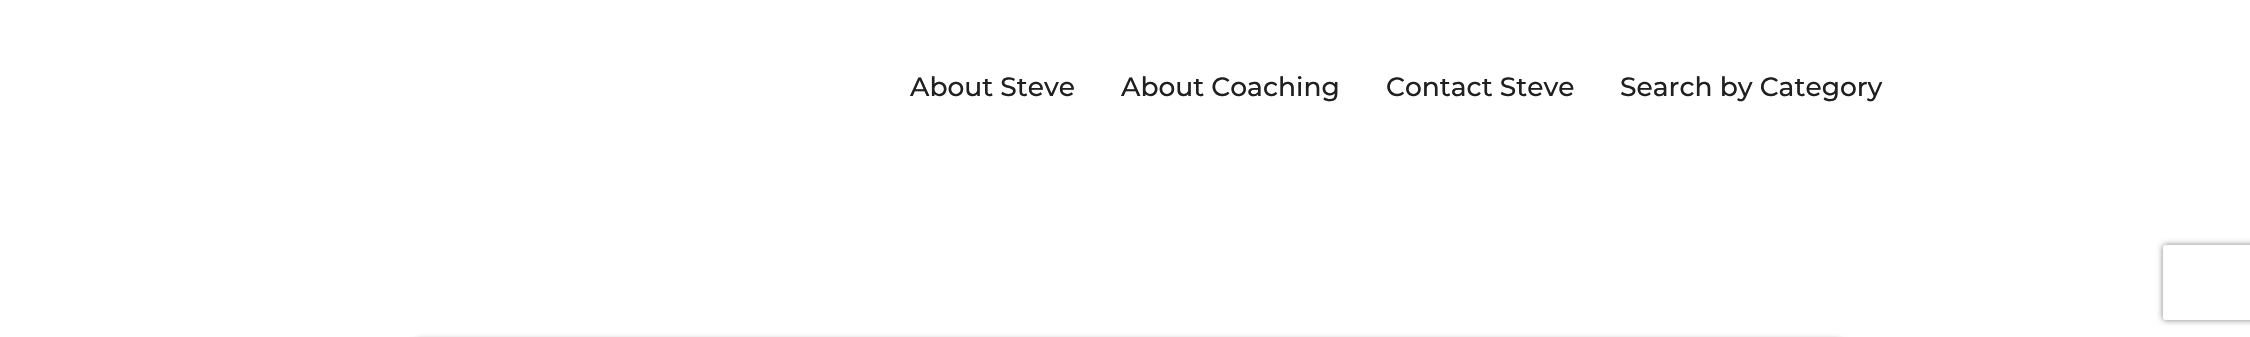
void draw(SkCanvas* canvas) {
  SkPaint paint;
  paint.setAntiAlias(true);
  auto face = [&](const char* family, int weight, float size, bool italic = false) {
    SkFontStyle style(weight, SkFontStyle::kNormal_Width,
      italic ? SkFontStyle::kItalic_Slant : SkFontStyle::kUpright_Slant);
    SkFont result(fontMgr->matchFamilyStyle(family, style), size);
    result.setSubpixel(true);
    return result;
  };
  auto shape = [&](const char* data, bool evenOdd = false) {
    SkPath result = *SkParsePath::FromSVGString(data);
    if (evenOdd) result.setFillType(SkPathFillType::kEvenOdd);
    return result;
  };
  canvas->clear(0xffffffff);
  canvas->save();
  canvas->clipPath(shape("M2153 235H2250V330H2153ZM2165.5 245H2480.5C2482 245 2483 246 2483 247.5V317.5C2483 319 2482 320 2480.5 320H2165.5C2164 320 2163 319 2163 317.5V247.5C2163 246 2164 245 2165.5 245Z", true), true);
  paint.setColor(0xff808080);
  paint.setMaskFilter(SkMaskFilter::MakeBlur(kNormal_SkBlurStyle, 3));
  canvas->drawRoundRect(SkRect::MakeXYWH(2163, 245, 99, 75), 2.5f, 2.5f, paint);
  paint.setMaskFilter(nullptr);
  canvas->restore();
  paint.setColor(0xff000000);
  paint.setMaskFilter(SkMaskFilter::MakeBlur(kNormal_SkBlurStyle, 4.5f));
  canvas->drawRoundRect(SkRect::MakeXYWH(416, 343, 1425, 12), 4, 4, paint);
  paint.setMaskFilter(nullptr);
  auto f0 = face("Montserrat", 500, 26.5f);
  paint.setColor(0xff202020);
  {
    const struct { const char* s; float x, y; } items[] = {
      {"About Steve", 910, 96},
      {"About Coaching", 1121, 96},
      {"Contact Steve", 1386, 96},
      {"Search by Category", 1620, 96},
    };
    for (auto [s, x, y] : items) {
      canvas->drawString(s, x, y, f0, paint);
    }
  }
}
